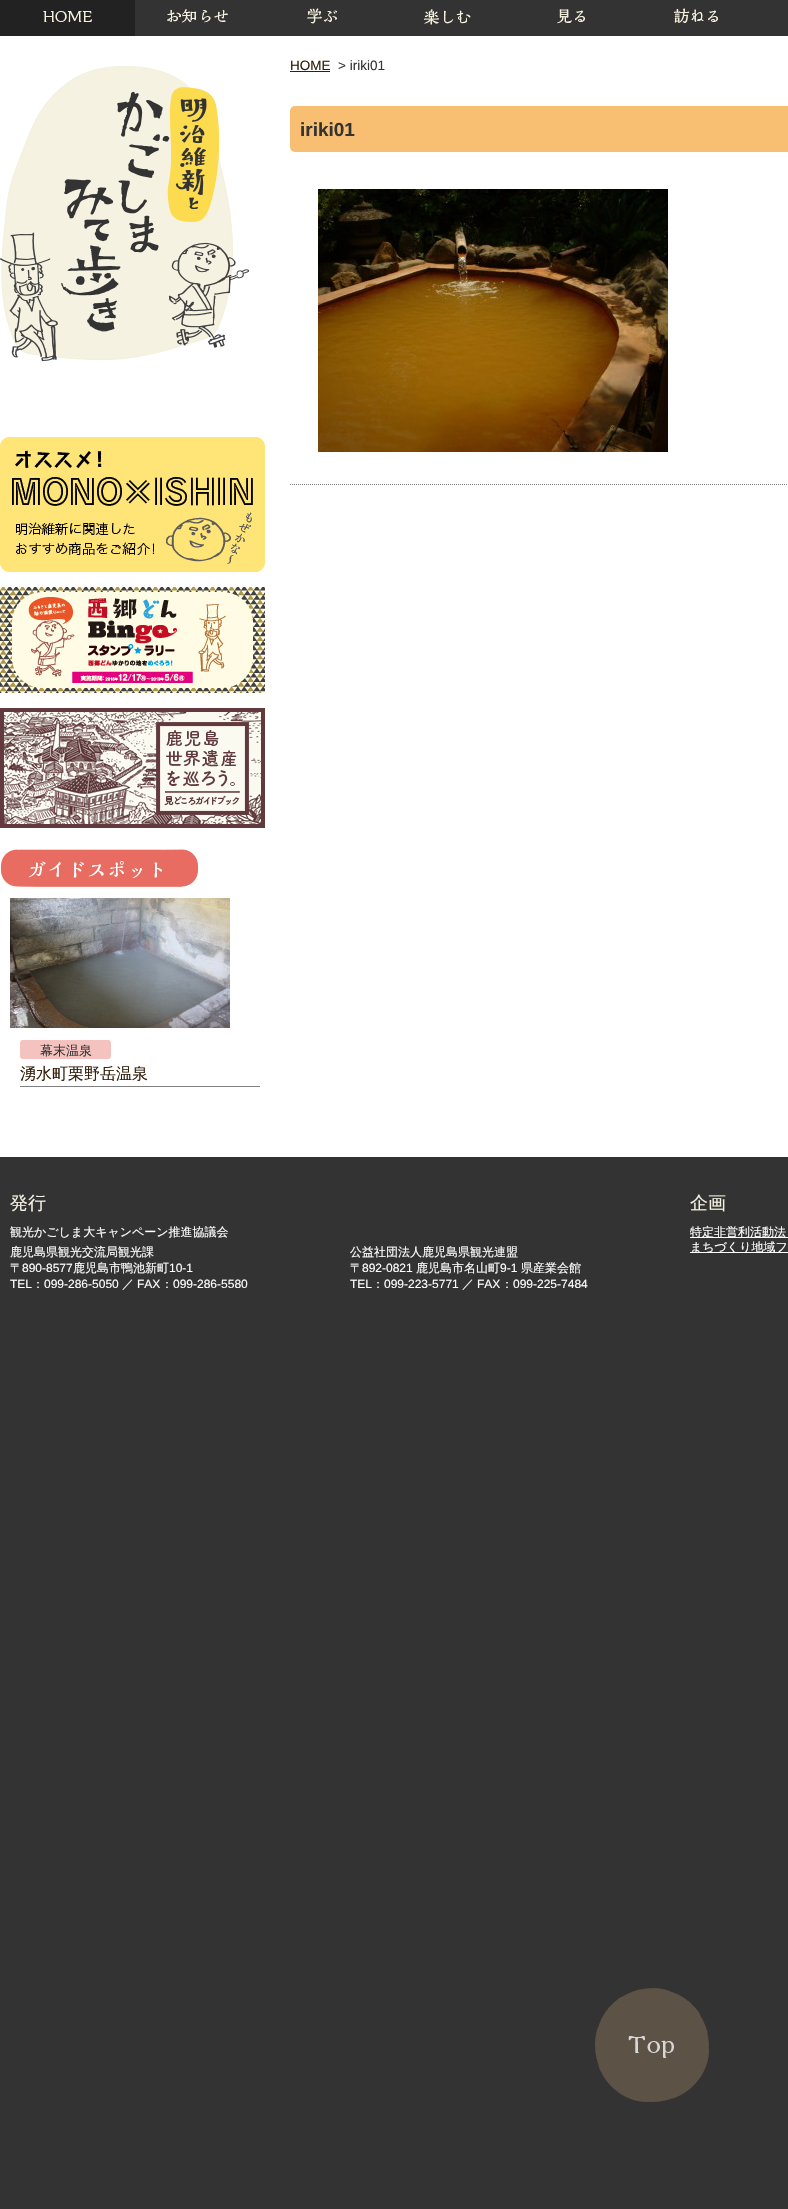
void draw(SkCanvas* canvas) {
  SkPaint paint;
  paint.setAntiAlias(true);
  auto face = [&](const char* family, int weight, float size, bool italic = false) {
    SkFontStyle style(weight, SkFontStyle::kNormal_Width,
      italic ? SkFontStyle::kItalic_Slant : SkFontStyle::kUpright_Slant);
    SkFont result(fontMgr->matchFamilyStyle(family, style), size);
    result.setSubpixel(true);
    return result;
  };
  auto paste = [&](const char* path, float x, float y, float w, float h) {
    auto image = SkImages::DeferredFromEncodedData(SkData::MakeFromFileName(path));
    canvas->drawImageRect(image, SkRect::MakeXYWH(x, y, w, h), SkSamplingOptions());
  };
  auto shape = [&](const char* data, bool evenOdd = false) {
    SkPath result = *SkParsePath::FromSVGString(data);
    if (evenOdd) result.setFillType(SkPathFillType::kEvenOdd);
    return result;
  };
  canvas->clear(0xff333333);
  paint.setColor(0xffffffff);
  canvas->drawRect(SkRect::MakeXYWH(0, 36, 788, 1121), paint);
  paint.setColor(0xff222222);
  canvas->drawRect(SkRect::MakeXYWH(0, 0, 135, 36), paint);
  paste("img/1.png", 43, 11, 49, 12);
  paste("img/2.png", 167, 9, 61, 14);
  paste("img/3.png", 307, 8, 30, 16);
  paste("img/4.png", 424, 9, 47, 16);
  paste("img/5.png", 557, 9, 28, 15);
  paste("img/6.png", 674, 8, 44, 15);
  paint.setColor(0xff33200b);
  canvas->drawRect(SkRect::MakeXYWH(290, 71, 40, 1), paint);
  paint.setColor(0xfff8be71);
  canvas->drawRoundRect(SkRect::MakeXYWH(290, 106, 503, 46), 5, 5, paint);
  paste("img/7.png", 318, 189, 350, 263);
  paint.setStroke(true);
  paint.setStrokeWidth(1);
  paint.setColor(0xff808080);
  paint.setPathEffect(SkDashPathEffect::Make({{1, 1}}, 0));
  canvas->drawPath(shape("M290 484.5H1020"), paint);
  paint.setPathEffect(nullptr);
  paste("img/8.png", 0, 66, 249, 295);
  paste("img/9.png", 0, 437, 265, 135);
  paste("img/10.png", 0, 587, 265, 106);
  paste("img/11.png", 0, 708, 265, 120);
  paste("img/12.png", 0, 849, 198, 38);
  paste("img/13.png", 10, 898, 220, 130);
  paint.setStroke(false);
  canvas->drawRect(SkRect::MakeXYWH(20, 1086, 240, 1), paint);
  paint.setColor(0xfff5c3bf);
  canvas->drawRoundRect(SkRect::MakeXYWH(20, 1040, 91, 19), 3, 3, paint);
  paint.setColor(0xffffffff);
  canvas->drawRect(SkRect::MakeXYWH(690, 1237, 98, 1), paint);
  canvas->drawRect(SkRect::MakeXYWH(690, 1252, 98, 1), paint);
  paste("img/14.png", 595, 1988, 114, 114);
  auto f0 = face("Liberation Sans", 400, 13.5f);
  paint.setColor(0xff33200b);
  canvas->drawString("HOME", 290, 70, f0, paint);
  paint.setColor(0xff333333);
  canvas->drawString("> iriki01", 338, 70, f0, paint);
  auto f1 = face("Liberation Sans", 700, 19);
  canvas->drawString("iriki01", 300, 136, f1, paint);
  auto f2 = face("WenQuanYi Zen Hei", 500, 13);
  canvas->drawString("幕末温泉", 40, 1055, f2, paint);
  auto f3 = face("WenQuanYi Zen Hei", 500, 16);
  paint.setColor(0xff33200b);
  canvas->drawString("湧水町栗野岳温泉", 20, 1079, f3, paint);
  auto f4 = face("WenQuanYi Zen Hei", 500, 18);
  paint.setColor(0xfff5f3e4);
  canvas->drawString("発行", 10, 1209, f4, paint);
  auto f5 = face("WenQuanYi Zen Hei", 500, 12);
  paint.setColor(0xffffffff);
  {
    const struct { const char* s; float x, y; } items[] = {
      {"観光かごしま大キャンペーン推進協議会", 10, 1236},
      {"鹿児島県観光交流局観光課", 10, 1256},
      {"〒", 10, 1272},
    };
    for (auto [s, x, y] : items) {
      canvas->drawString(s, x, y, f5, paint);
    }
  }
  auto f6 = face("Liberation Sans", 400, 12);
  canvas->drawString("890-8577", 22, 1272, f6, paint);
  canvas->drawString("鹿児島市鴨池新町", 73, 1272, f5, paint);
  canvas->drawString("10-1", 169, 1272, f6, paint);
  canvas->drawString("TEL", 10, 1288, f6, paint);
  canvas->drawString("：", 32, 1288, f5, paint);
  canvas->drawString("099-286-5050", 44, 1288, f6, paint);
  canvas->drawString("／", 122, 1288, f5, paint);
  canvas->drawString("FAX", 137, 1288, f6, paint);
  canvas->drawString("：", 161, 1288, f5, paint);
  canvas->drawString("099-286-5580", 173, 1288, f6, paint);
  paint.setColor(0xfff5f3e4);
  canvas->drawString("企画", 690, 1209, f4, paint);
  paint.setColor(0xffffffff);
  {
    const struct { const char* s; float x, y; } items[] = {
      {"特定非営利活動法", 690, 1236},
      {"まちづくり地域フ", 690, 1251},
      {"公益社団法人鹿児島県観光連盟", 350, 1256},
      {"〒", 350, 1272},
    };
    for (auto [s, x, y] : items) {
      canvas->drawString(s, x, y, f5, paint);
    }
  }
  canvas->drawString("892-0821", 362, 1272, f6, paint);
  canvas->drawString("鹿児島市名山町", 416, 1272, f5, paint);
  canvas->drawString("9-1", 500, 1272, f6, paint);
  canvas->drawString("県産業会館", 521, 1272, f5, paint);
  canvas->drawString("TEL", 350, 1288, f6, paint);
  canvas->drawString("：", 372, 1288, f5, paint);
  canvas->drawString("099-223-5771", 384, 1288, f6, paint);
  canvas->drawString("／", 462, 1288, f5, paint);
  canvas->drawString("FAX", 477, 1288, f6, paint);
  canvas->drawString("：", 501, 1288, f5, paint);
  canvas->drawString("099-225-7484", 513, 1288, f6, paint);
}
